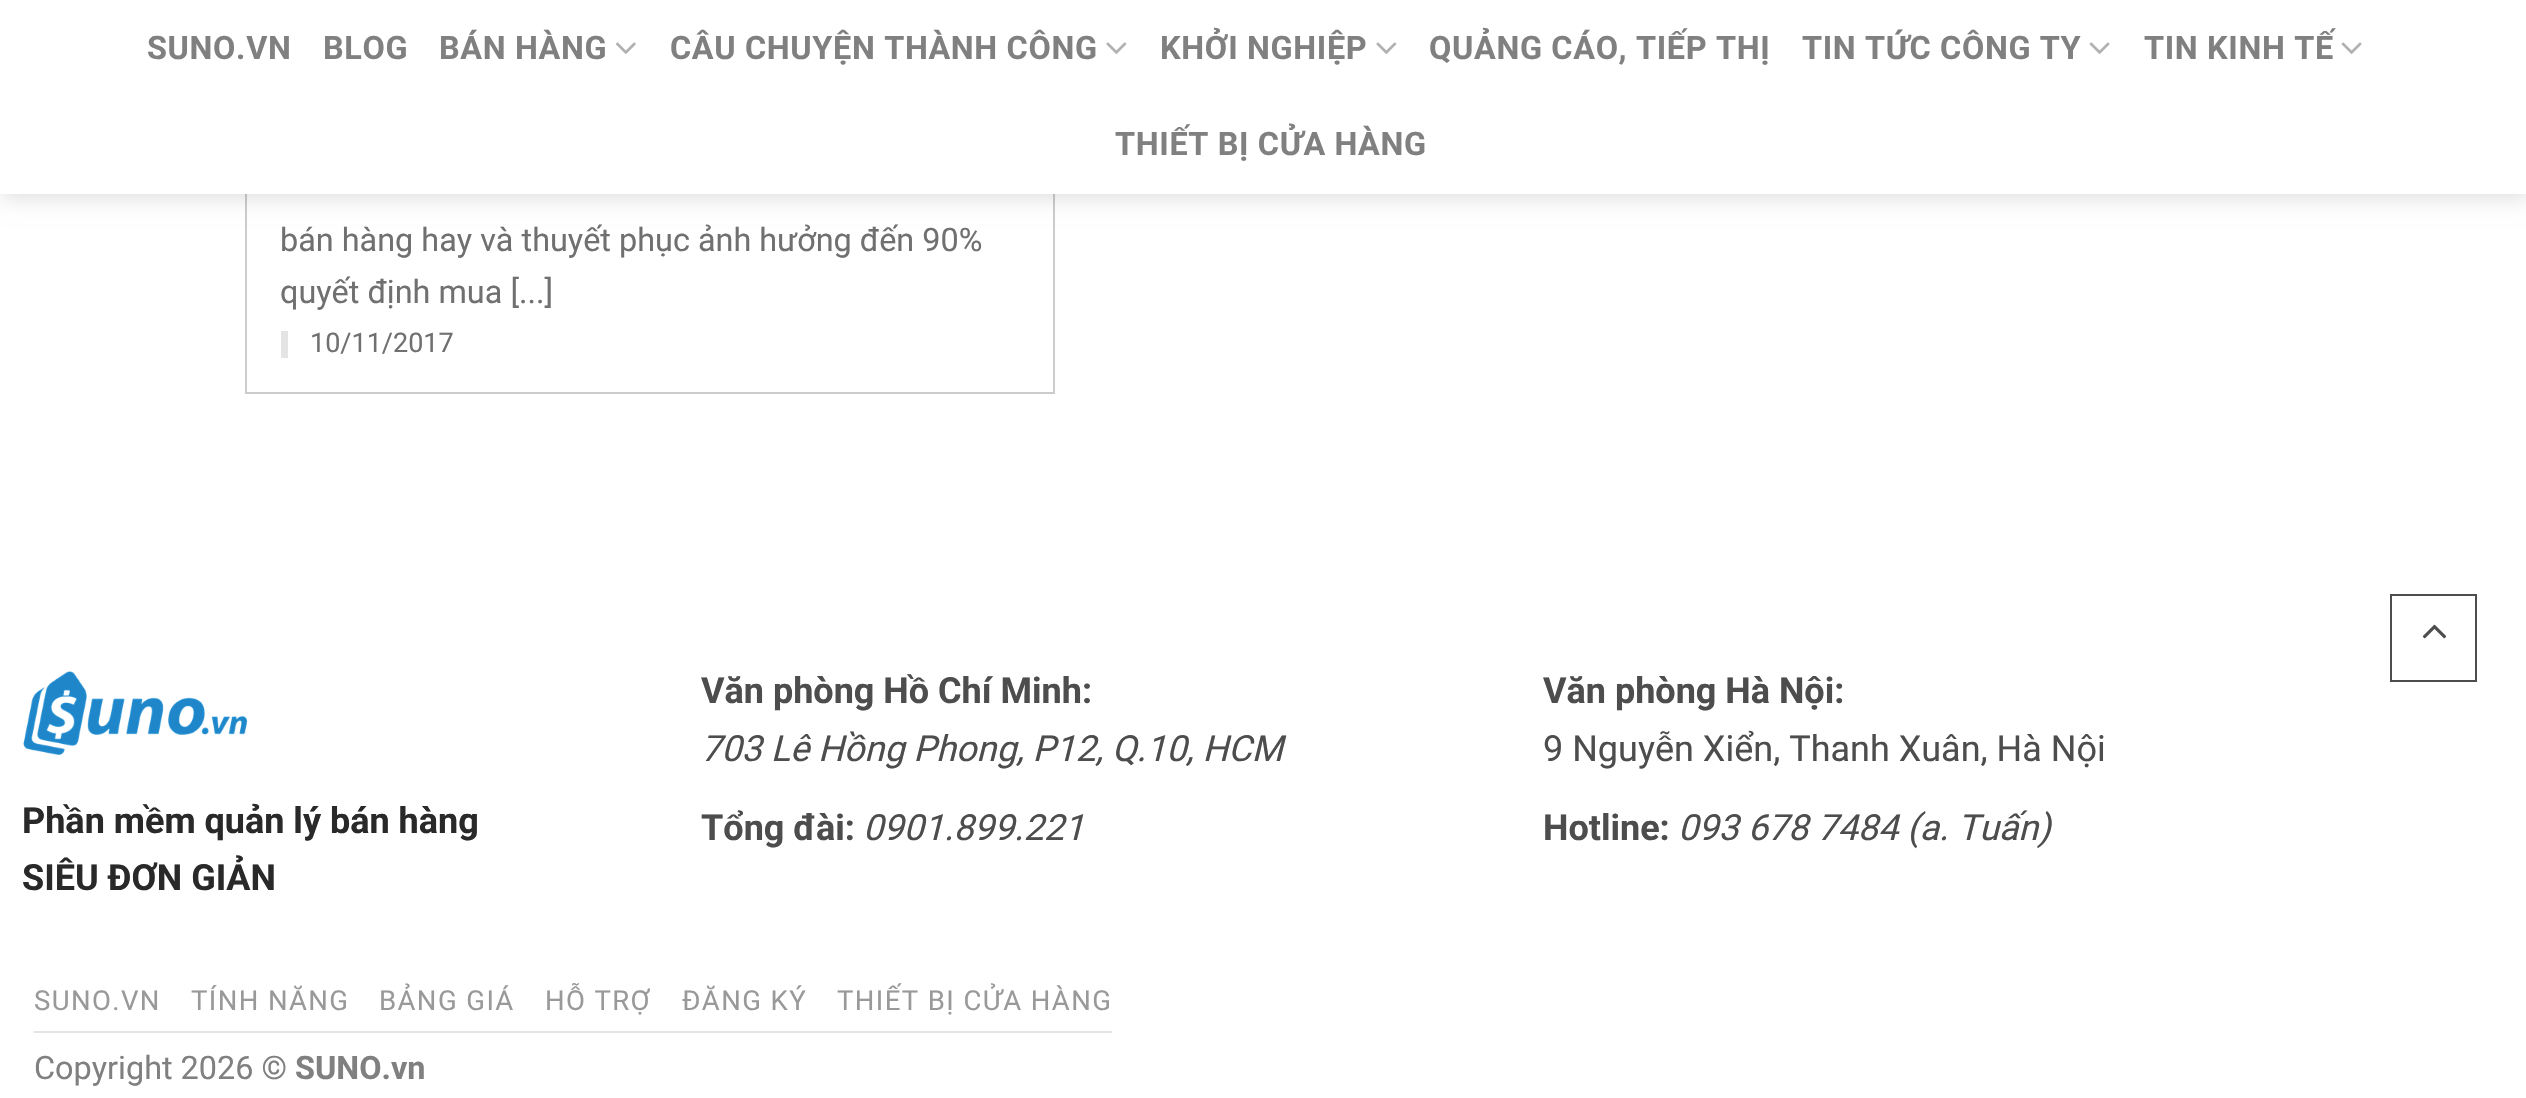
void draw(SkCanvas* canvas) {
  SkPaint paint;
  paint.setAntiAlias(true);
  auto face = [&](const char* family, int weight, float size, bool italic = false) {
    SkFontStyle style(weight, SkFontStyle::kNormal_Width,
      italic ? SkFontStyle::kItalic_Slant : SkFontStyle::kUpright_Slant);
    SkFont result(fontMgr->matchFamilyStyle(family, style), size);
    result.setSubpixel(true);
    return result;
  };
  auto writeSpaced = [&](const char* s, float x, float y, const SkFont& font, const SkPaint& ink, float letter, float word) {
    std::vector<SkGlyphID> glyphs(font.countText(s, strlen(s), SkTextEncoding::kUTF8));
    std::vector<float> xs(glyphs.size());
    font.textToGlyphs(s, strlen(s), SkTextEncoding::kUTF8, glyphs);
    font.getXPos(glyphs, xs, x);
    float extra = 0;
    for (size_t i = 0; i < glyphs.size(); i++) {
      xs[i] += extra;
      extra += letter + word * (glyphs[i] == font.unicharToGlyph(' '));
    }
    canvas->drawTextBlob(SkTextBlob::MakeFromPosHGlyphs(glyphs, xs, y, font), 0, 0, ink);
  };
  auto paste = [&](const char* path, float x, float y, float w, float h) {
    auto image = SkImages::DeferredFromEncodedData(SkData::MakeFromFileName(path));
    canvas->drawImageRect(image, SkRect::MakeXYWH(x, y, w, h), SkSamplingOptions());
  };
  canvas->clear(0xffffffff);
  paint.setStroke(true);
  paint.setStrokeWidth(2);
  paint.setColor(0xffcccccc);
  canvas->drawRect(SkRect::MakeXYWH(246, -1, 808, 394), paint);
  paint.setStroke(false);
  paint.setColor(0x26000000);
  paint.setMaskFilter(SkMaskFilter::MakeBlur(kNormal_SkBlurStyle, 11));
  canvas->drawRect(SkRect::MakeXYWH(2, 2, 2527, 194), paint);
  paint.setMaskFilter(nullptr);
  paint.setColor(0xffffffff);
  canvas->drawRect(SkRect::MakeXYWH(0, 0, 2526, 194), paint);
  paste("img/1.png", 615, 42, 21, 12);
  paste("img/2.png", 1106, 42, 21, 12);
  paste("img/2.png", 1376, 42, 21, 12);
  paste("img/3.png", 2089, 42, 21, 12);
  paste("img/3.png", 2341, 42, 21, 12);
  paint.setColor(0xffe4e4e4);
  canvas->drawRect(SkRect::MakeXYWH(281, 331, 7, 27), paint);
  paint.setStroke(true);
  paint.setColor(0xff4d4d4d);
  canvas->drawRect(SkRect::MakeXYWH(2391, 595, 85, 86), paint);
  paste("img/4.png", 2422, 624, 25, 15);
  paste("img/5.png", 23, 671, 225, 84);
  paint.setStroke(false);
  paint.setColor(0xffe4e4e4);
  canvas->drawRect(SkRect::MakeXYWH(34, 1031, 1078, 2), paint);
  auto f0 = face("Roboto", 700, 32.4f);
  paint.setColor(0xff808080);
  {
    const struct { const char* s; float x, y; } items[] = {
      {"SUNO.VN", 147, 59},
      {"BLOG", 323, 59},
      {"BÁN HÀNG", 439, 59},
      {"CÂU CHUYỆN THÀNH CÔNG", 670, 59},
      {"KHỞI NGHIỆP", 1160, 59},
      {"QUẢNG CÁO, TIẾP THỊ", 1429, 59},
      {"TIN TỨC CÔNG TY", 1802, 59},
      {"TIN KINH TẾ", 2144, 59},
      {"THIẾT BỊ CỬA HÀNG", 1115, 155},
    };
    for (auto [s, x, y] : items) {
      writeSpaced(s, x, y, f0, paint, 0.65f, 0);
    }
  }
  auto f1 = face("Roboto", 400, 32.4f);
  paint.setColor(0xff707070);
  canvas->drawString("bán hàng hay và thuyết phục ảnh hưởng đến 90%", 280, 251, f1, paint);
  canvas->drawString("quyết định mua [...]", 280, 303, f1, paint);
  auto f2 = face("Roboto", 400, 27);
  canvas->drawString("10/11/2017", 310, 352, f2, paint);
  auto f3 = face("Roboto", 700, 36);
  paint.setColor(0xff292929);
  canvas->drawString("Phần mềm quản lý bán hàng", 22, 833, f3, paint);
  canvas->drawString("SIÊU ĐƠN GIẢN", 22, 890, f3, paint);
  paint.setColor(0xff4d4d4d);
  canvas->drawString("Văn phòng Hồ Chí Minh:", 701, 703, f3, paint);
  auto f4 = face("Roboto", 400, 36, true);
  canvas->drawString("703 Lê Hồng Phong, P12, Q.10, HCM", 701, 761, f4, paint);
  canvas->drawString("Tổng đài:", 701, 840, f3, paint);
  canvas->drawString("0901.899.221", 863, 840, f4, paint);
  canvas->drawString("Văn phòng Hà Nội:", 1543, 703, f3, paint);
  auto f5 = face("Roboto", 400, 36);
  canvas->drawString("9 Nguyễn Xiển, Thanh Xuân, Hà Nội", 1543, 761, f5, paint);
  canvas->drawString("Hotline:", 1543, 840, f3, paint);
  canvas->drawString("093 678 7484 (a. Tuấn)", 1678, 840, f4, paint);
  auto f6 = face("Roboto", 400, 27.5f);
  paint.setColor(0xff999999);
  {
    const struct { const char* s; float x, y; } items[] = {
      {"SUNO.VN", 34, 1010},
      {"TÍNH NĂNG", 191, 1010},
      {"BẢNG GIÁ", 379, 1010},
      {"HỖ TRỢ", 545, 1010},
      {"ĐĂNG KÝ", 682, 1010},
      {"THIẾT BỊ CỬA HÀNG", 837, 1010},
    };
    for (auto [s, x, y] : items) {
      writeSpaced(s, x, y, f6, paint, 1.4f, 0);
    }
  }
  paint.setColor(0xff808080);
  canvas->drawString("Copyright 2026 ©", 34, 1079, f1, paint);
  canvas->drawString("SUNO.vn", 295, 1079, f0, paint);
}
